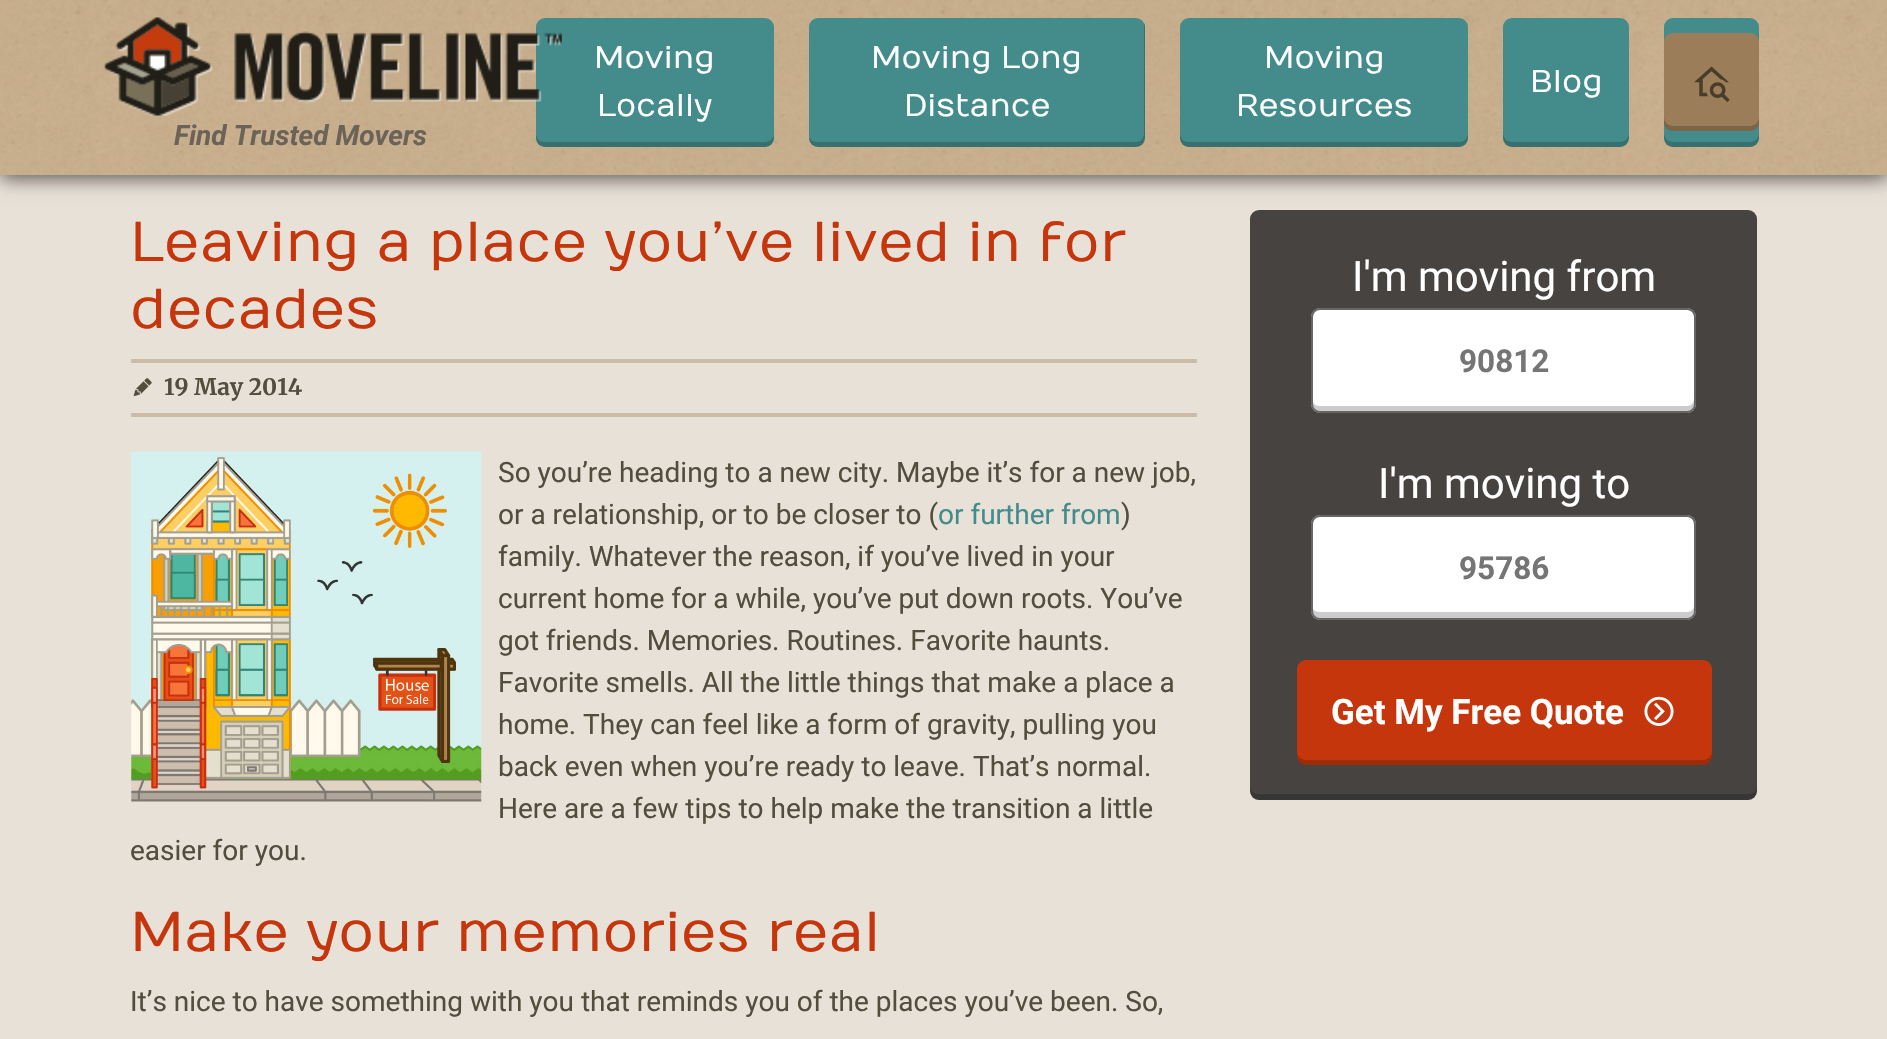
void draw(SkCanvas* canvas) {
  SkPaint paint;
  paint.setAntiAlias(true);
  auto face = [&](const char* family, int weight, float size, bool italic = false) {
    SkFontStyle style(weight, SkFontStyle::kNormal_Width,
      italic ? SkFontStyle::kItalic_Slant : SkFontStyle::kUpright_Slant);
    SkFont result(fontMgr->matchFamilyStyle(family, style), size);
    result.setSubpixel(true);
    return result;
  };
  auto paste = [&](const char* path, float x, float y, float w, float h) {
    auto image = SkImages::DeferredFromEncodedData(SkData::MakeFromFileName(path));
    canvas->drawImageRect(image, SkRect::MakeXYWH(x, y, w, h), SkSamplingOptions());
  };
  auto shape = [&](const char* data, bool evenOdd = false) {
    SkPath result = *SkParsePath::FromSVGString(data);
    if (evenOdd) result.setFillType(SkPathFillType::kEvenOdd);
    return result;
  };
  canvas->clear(0xffe8e1d8);
  paint.setColor(0x99000000);
  paint.setMaskFilter(SkMaskFilter::MakeBlur(kNormal_SkBlurStyle, 9));
  canvas->drawRect(SkRect::MakeXYWH(0, 4, 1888, 175), paint);
  paint.setMaskFilter(nullptr);
  paste("img/1.png", 0, 0, 1887, 175);
  paint.setColor(0xff448c8b);
  canvas->drawRoundRect(SkRect::MakeXYWH(536, 18, 238, 129), 9, 9, paint);
  paint.setColor(0x33000000);
  canvas->drawPath(shape("M536 133V138C536 143 540 147 545 147H765C770 147 774 143 774 138V133C774 138 770 142 765 142H544C539 142 536 138 536 133Z"), paint);
  paint.setColor(0xff448c8b);
  canvas->drawRoundRect(SkRect::MakeXYWH(809, 18, 336, 129), 9, 9, paint);
  paint.setColor(0x33000000);
  canvas->drawPath(shape("M809 137V138C809 143 813 147 818 147H1136C1141 147 1145 143 1145 138V27C1145 26 1145 24 1144 23V133C1144 138 1141 142 1136 142H817C814 142 810 140 809 137Z"), paint);
  paint.setColor(0xff448c8b);
  canvas->drawRoundRect(SkRect::MakeXYWH(1180, 18, 288, 129), 9, 9, paint);
  paint.setColor(0x33000000);
  canvas->drawPath(shape("M1180 133V138C1180 143 1184 147 1189 147H1459C1464 147 1468 143 1468 138V133C1468 138 1464 142 1460 142H1188C1183 142 1180 138 1180 133Z"), paint);
  paint.setColor(0xff448c8b);
  canvas->drawRoundRect(SkRect::MakeXYWH(1503, 18, 126, 129), 9, 9, paint);
  paint.setColor(0x33000000);
  canvas->drawPath(shape("M1503 133V138C1503 143 1507 147 1512 147H1620C1625 147 1629 143 1629 138V133C1629 138 1625 142 1620 142H1512C1507 142 1503 138 1503 133Z"), paint);
  paint.setColor(0xff448c8b);
  canvas->drawRoundRect(SkRect::MakeXYWH(1664, 18, 95, 129), 9, 9, paint);
  paint.setColor(0x33000000);
  canvas->drawPath(shape("M1664 133V138C1664 143 1668 147 1673 147H1750C1755 147 1759 143 1759 138V133C1759 138 1755 142 1750 142H1673C1668 142 1664 138 1664 133Z"), paint);
  paint.setColor(0xff9b7e59);
  canvas->drawRoundRect(SkRect::MakeXYWH(1664, 33, 95, 98), 9, 9, paint);
  paint.setColor(0x33000000);
  canvas->drawPath(shape("M1664 117V122C1664 127 1668 131 1673 131H1750C1755 131 1759 127 1759 122V117C1759 122 1755 126 1750 126H1673C1668 126 1664 122 1664 117Z"), paint);
  paste("img/2.png", 1694, 66, 36, 36);
  paste("img/3.png", 104, 17, 458, 99);
  paint.setColor(0xffccbca7);
  canvas->drawRect(SkRect::MakeXYWH(131, 359, 1066, 4), paint);
  canvas->drawRect(SkRect::MakeXYWH(131, 413, 1066, 4), paint);
  paste("img/4.png", 133, 378, 19, 19);
  paste("img/5.png", 131, 451, 351, 351);
  paint.setColor(0xff464341);
  canvas->drawRoundRect(SkRect::MakeXYWH(1250, 210, 507, 590), 9, 9, paint);
  paint.setColor(0x33000000);
  canvas->drawPath(shape("M1250 786C1250 792 1250 798 1257 800H1750C1757 798 1757 792 1757 786C1757 791 1753 794 1748 794H1258C1253 794 1250 791 1250 786Z"), paint);
  paint.setColor(0xffffffff);
  canvas->drawRoundRect(SkRect::MakeXYWH(1311, 308, 385, 105), 9, 9, paint);
  paint.setColor(0xffcccccc);
  canvas->drawPath(shape("M1313 402V404C1313 408 1316 411 1320 411H1687C1691 411 1694 408 1694 404V399C1694 403 1691 406 1687 406H1320C1317 406 1314 405 1313 402Z"), paint);
  paint.setStroke(true);
  paint.setStrokeWidth(2);
  paint.setColor(0x99000000);
  canvas->drawRoundRect(SkRect::MakeXYWH(1312, 309, 383, 103), 8, 8, paint);
  paint.setStroke(false);
  paint.setColor(0xffffffff);
  canvas->drawRoundRect(SkRect::MakeXYWH(1311, 515, 385, 105), 9, 9, paint);
  paint.setColor(0xffcccccc);
  canvas->drawPath(shape("M1313 609V611C1313 615 1316 618 1320 618H1687C1691 618 1694 615 1694 611V606C1694 609 1691 612 1687 612H1320C1317 612 1314 611 1313 609Z"), paint);
  paint.setStroke(true);
  paint.setColor(0x99000000);
  canvas->drawRoundRect(SkRect::MakeXYWH(1312, 516, 383, 103), 8, 8, paint);
  paint.setStroke(false);
  paint.setColor(0xffc5360c);
  canvas->drawRoundRect(SkRect::MakeXYWH(1297, 660, 415, 105), 9, 9, paint);
  paint.setColor(0x33000000);
  canvas->drawPath(shape("M1297 751V756C1297 761 1301 765 1306 765H1703C1708 765 1712 761 1712 756V751C1712 756 1708 760 1703 760H1306C1301 760 1297 756 1297 751Z"), paint);
  paste("img/6.png", 1644, 696, 30, 30);
  auto f0 = face("Numans", 400, 31.5f);
  paint.setColor(0xffffffff);
  {
    const struct { const char* s; float x, y; } items[] = {
      {"Moving", 594, 68},
      {"Locally", 597, 116},
      {"Moving Long", 871, 68},
      {"Distance", 904, 116},
      {"Moving", 1264, 68},
      {"Resources", 1236, 116},
      {"Blog", 1530, 92},
    };
    for (auto [s, x, y] : items) {
      canvas->drawString(s, x, y, f0, paint);
    }
  }
  auto f1 = face("Roboto", 700, 28, true);
  paint.setColor(0xff6b6258);
  canvas->drawString("Find Trusted Movers", 174, 145, f1, paint);
  auto f2 = face("Numans", 400, 56);
  paint.setColor(0xffc5360c);
  canvas->drawString("Leaving a place you’ve lived in for", 130, 261, f2, paint);
  canvas->drawString("decades", 130, 328, f2, paint);
  auto f3 = face("Merriweather", 300, 22.75f);
  paint.setColor(0xff544c3d);
  canvas->drawString("19 May 2014", 164, 395, f3, paint);
  auto f4 = face("Roboto", 400, 28);
  canvas->drawString("So you’re heading to a new city. Maybe it’s for a new job,", 498, 482, f4, paint);
  canvas->drawString("or a relationship, or to be closer to (", 498, 524, f4, paint);
  paint.setColor(0xff448c8b);
  canvas->drawString("or further from", 938, 524, f4, paint);
  paint.setColor(0xff544c3d);
  {
    const struct { const char* s; float x, y; } items[] = {
      {")", 1121, 524},
      {"family. Whatever the reason, if you’ve lived in your", 498, 566},
      {"current home for a while, you’ve put down roots. You’ve", 498, 608},
      {"got friends. Memories. Routines. Favorite haunts.", 498, 650},
      {"Favorite smells. All the little things that make a place a", 498, 692},
      {"home. They can feel like a form of gravity, pulling you", 498, 734},
      {"back even when you’re ready to leave. That’s normal.", 498, 776},
      {"Here are a few tips to help make the transition a little", 498, 818},
      {"easier for you.", 130, 860},
    };
    for (auto [s, x, y] : items) {
      canvas->drawString(s, x, y, f4, paint);
    }
  }
  paint.setColor(0xffc5360c);
  canvas->drawString("Make your memories real", 130, 951, f2, paint);
  paint.setColor(0xff544c3d);
  canvas->drawString("It’s nice to have something with you that reminds you of the places you’ve been. So,", 130, 1011, f4, paint);
  auto f5 = face("Roboto", 400, 42);
  paint.setColor(0xffffffff);
  canvas->drawString("I'm moving from", 1352, 291, f5, paint);
  auto f6 = face("Roboto", 700, 31.5f);
  paint.setColor(0xff757575);
  canvas->drawString("90812", 1459, 372, f6, paint);
  paint.setColor(0xffffffff);
  canvas->drawString("I'm moving to", 1378, 498, f5, paint);
  paint.setColor(0xff757575);
  canvas->drawString("95786", 1459, 579, f6, paint);
  auto f7 = face("Roboto", 700, 35);
  paint.setColor(0xffffffff);
  canvas->drawString("Get My Free Quote", 1331, 724, f7, paint);
}
